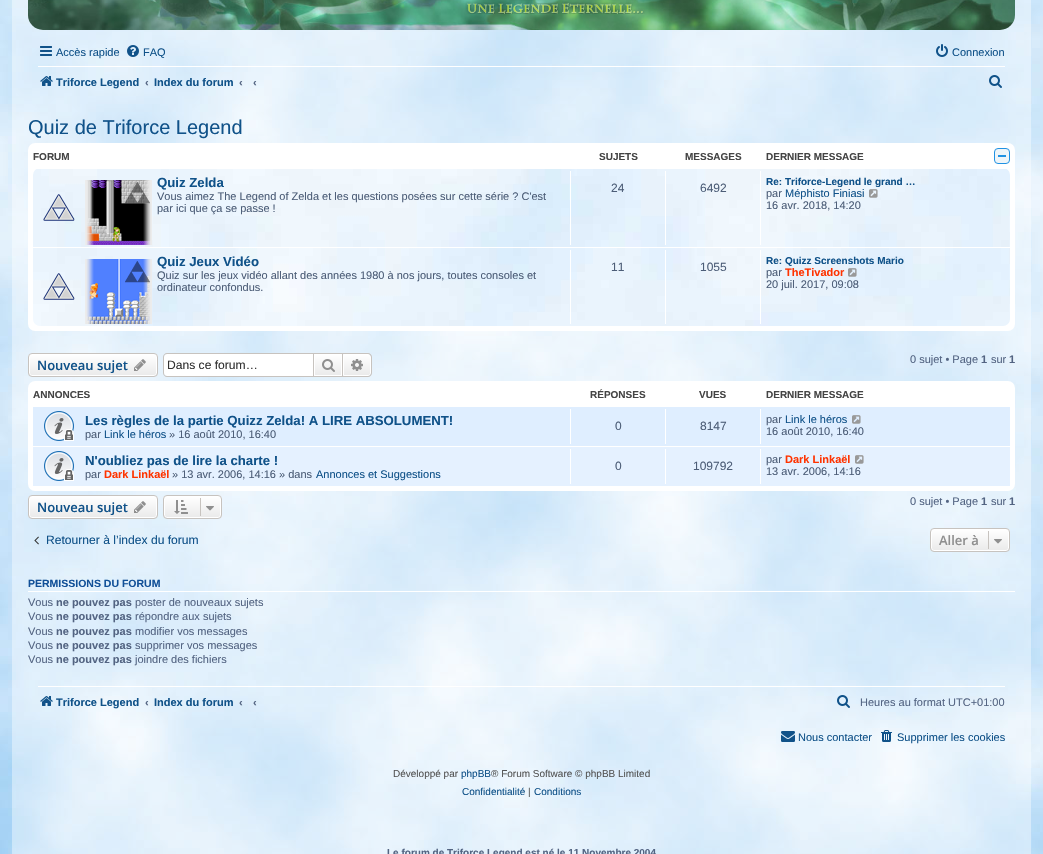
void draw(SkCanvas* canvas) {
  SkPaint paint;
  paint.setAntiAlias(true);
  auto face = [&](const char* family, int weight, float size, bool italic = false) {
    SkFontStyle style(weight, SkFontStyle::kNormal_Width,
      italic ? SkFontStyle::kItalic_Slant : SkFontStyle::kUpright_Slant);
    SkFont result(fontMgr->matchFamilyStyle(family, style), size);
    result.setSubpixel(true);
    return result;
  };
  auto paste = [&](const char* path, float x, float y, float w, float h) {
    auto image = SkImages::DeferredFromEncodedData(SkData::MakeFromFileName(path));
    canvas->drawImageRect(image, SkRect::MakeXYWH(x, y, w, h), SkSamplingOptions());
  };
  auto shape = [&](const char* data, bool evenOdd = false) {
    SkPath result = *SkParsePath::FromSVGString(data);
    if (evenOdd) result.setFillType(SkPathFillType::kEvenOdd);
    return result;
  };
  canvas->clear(0xffffffff);
  paste("img/1.png", 0, 0, 1043, 854);
  paste("img/2.png", 28, 0, 987, 30);
  paste("img/3.png", 465, 1, 180, 13);
  paste("img/4.png", 40, 46, 12, 10);
  paste("img/5.png", 127, 45, 12, 12);
  paste("img/6.png", 936, 44, 12, 13);
  paint.setColor(0xffffffff);
  canvas->drawRect(SkRect::MakeXYWH(38, 66, 967, 1), paint);
  paste("img/7.png", 40, 76, 13, 10);
  paste("img/8.png", 989, 75, 13, 13);
  canvas->drawRoundRect(SkRect::MakeXYWH(28, 143, 987, 188), 7, 7, paint);
  paint.setColor(0xffeef5f9);
  canvas->drawRoundRect(SkRect::MakeXYWH(994.5f, 148.5f, 15, 15), 3.5f, 3.5f, paint);
  paint.setStroke(true);
  paint.setStrokeWidth(1);
  paint.setColor(0xff2092e3);
  canvas->drawRoundRect(SkRect::MakeXYWH(994.5f, 148.5f, 15, 15), 3.5f, 3.5f, paint);
  paint.setStroke(false);
  canvas->drawRect(SkRect::MakeXYWH(998, 155, 8, 2), paint);
  paste("img/9.png", 33, 169, 977, 157);
  paste("img/10.png", 43, 194, 32, 27);
  paste("img/11.png", 85, 180, 67, 65);
  {
    const struct { float x, y, w, h; SkColor color; } items[] = {
      {570, 171, 1, 74, 0xffffffff},
      {665, 171, 1, 74, 0xffffffff},
      {760, 171, 1, 74, 0xffffffff},
    };
    for (auto [x, y, w, h, color] : items) {
      paint.setColor(color);
      canvas->drawRect(SkRect::MakeXYWH(x, y, w, h), paint);
    }
  }
  paste("img/12.png", 869, 189, 9, 9);
  canvas->drawRect(SkRect::MakeXYWH(33, 247, 977, 1), paint);
  paste("img/13.png", 43, 273, 32, 27);
  paste("img/14.png", 85, 259, 67, 65);
  {
    const struct { float x, y, w, h; SkColor color; } items[] = {
      {570, 250, 1, 74, 0xffffffff},
      {665, 250, 1, 74, 0xffffffff},
      {760, 250, 1, 74, 0xffffffff},
    };
    for (auto [x, y, w, h, color] : items) {
      paint.setColor(color);
      canvas->drawRect(SkRect::MakeXYWH(x, y, w, h), paint);
    }
  }
  paste("img/15.png", 848, 268, 9, 9);
  canvas->save();
  canvas->clipPath(shape("M32 353H154C156 353 158 355 158 357V373C158 375 156 377 154 377H32C30 377 28 375 28 373V357C28 355 30 353 32 353Z"), true);
  {
    const SkColor colors[] = {0xffffffff, 0xffe9e9e9};
    const float stops[] = {0, 1};
    const SkPoint ends[] = {{93, 354}, {93, 376}};
    paint.setShader(SkGradientShader::MakeLinear(ends, colors, stops, 2, SkTileMode::kClamp));
    paint.setAlpha(255);
  }
  canvas->drawRect(SkRect::MakeXYWH(28, 354, 130, 22), paint);
  canvas->restore();
  paint.setStroke(true);
  paint.setShader(nullptr);
  paint.setColor(0xffffffff);
  canvas->drawRoundRect(SkRect::MakeXYWH(29.5f, 354.5f, 127, 21), 2.5f, 2.5f, paint);
  paint.setColor(0xffc7c3bf);
  canvas->drawRoundRect(SkRect::MakeXYWH(28.5f, 353.5f, 129, 23), 3.5f, 3.5f, paint);
  paste("img/16.png", 134, 359, 12, 12);
  paint.setStroke(false);
  paint.setColor(0xffffffff);
  canvas->drawPath(shape("M167 354H313V376H167C165.5 376 164 374.5 164 373V357C164 355.5 165.5 354 167 354Z"), paint);
  paint.setColor(0xffc7c3bf);
  canvas->drawPath(shape("M167 353H313V377H167C165 377 163 375 163 373V357C163 355 165 353 167 353ZM167 354H313V376H167C165 376 164 375 164 373V357C164 355 165 354 167 354Z", true), paint);
  {
    const SkColor colors[] = {0xffffffff, 0xffe9e9e9};
    const float stops[] = {0, 1};
    const SkPoint ends[] = {{328, 354}, {328, 376}};
    paint.setShader(SkGradientShader::MakeLinear(ends, colors, stops, 2, SkTileMode::kClamp));
    paint.setAlpha(255);
  }
  canvas->drawRect(SkRect::MakeXYWH(315, 355, 26, 20), paint);
  paint.setStroke(true);
  paint.setShader(nullptr);
  paint.setColor(0xffffffff);
  canvas->drawRect(SkRect::MakeXYWH(314.5f, 354.5f, 27, 21), paint);
  paint.setColor(0xffc7c3bf);
  canvas->drawRect(SkRect::MakeXYWH(313.5f, 353.5f, 29, 23), paint);
  paste("img/17.png", 322, 359, 13, 13);
  paint.setStroke(false);
  {
    const SkColor colors[] = {0xffffffff, 0xffe9e9e9};
    const float stops[] = {0, 1};
    const SkPoint ends[] = {{357, 354}, {357, 376}};
    paint.setShader(SkGradientShader::MakeLinear(ends, colors, stops, 2, SkTileMode::kClamp));
    paint.setAlpha(255);
  }
  canvas->drawPath(shape("M343.5 354.5H368C369.5 354.5 370.5 355.5 370.5 357V373C370.5 374.5 369.5 375.5 368 375.5H343.5Z"), paint);
  paint.setStroke(true);
  paint.setShader(nullptr);
  paint.setColor(0xffffffff);
  canvas->drawPath(shape("M343.5 354.5H368C369.5 354.5 370.5 355.5 370.5 357V373C370.5 374.5 369.5 375.5 368 375.5H343.5Z"), paint);
  paint.setStroke(false);
  paint.setColor(0xffc7c3bf);
  canvas->drawPath(shape("M343 353H368C370 353 372 355 372 357V373C372 375 370 377 368 377H343ZM343 354H368C369.5 354 371 355.5 371 357V373C371 374.5 369.5 376 368 376H343Z", true), paint);
  paste("img/18.png", 351, 359, 12, 12);
  paint.setColor(0xffffffff);
  canvas->drawRoundRect(SkRect::MakeXYWH(28, 381, 987, 110), 7, 7, paint);
  paint.setColor(0xffdfeeff);
  canvas->drawRect(SkRect::MakeXYWH(33, 407, 977, 39), paint);
  paste("img/19.png", 44, 411, 30, 30);
  {
    const struct { float x, y, w, h; SkColor color; } items[] = {
      {570, 409, 1, 35, 0xffffffff},
      {665, 409, 1, 35, 0xffffffff},
      {760, 409, 1, 35, 0xffffffff},
    };
    for (auto [x, y, w, h, color] : items) {
      paint.setColor(color);
      canvas->drawRect(SkRect::MakeXYWH(x, y, w, h), paint);
    }
  }
  paste("img/20.png", 852, 415, 9, 9);
  paint.setColor(0xffe5f1ff);
  canvas->drawRect(SkRect::MakeXYWH(33, 447, 977, 39), paint);
  paste("img/21.png", 44, 451, 30, 30);
  {
    const struct { float x, y, w, h; SkColor color; } items[] = {
      {570, 449, 1, 35, 0xffffffff},
      {665, 449, 1, 35, 0xffffffff},
      {760, 449, 1, 35, 0xffffffff},
    };
    for (auto [x, y, w, h, color] : items) {
      paint.setColor(color);
      canvas->drawRect(SkRect::MakeXYWH(x, y, w, h), paint);
    }
  }
  paste("img/22.png", 855, 455, 9, 9);
  canvas->save();
  canvas->clipPath(shape("M32 495H154C156 495 158 497 158 499V515C158 517 156 519 154 519H32C30 519 28 517 28 515V499C28 497 30 495 32 495Z"), true);
  {
    const SkColor colors[] = {0xffffffff, 0xffe9e9e9};
    const float stops[] = {0, 1};
    const SkPoint ends[] = {{93, 496}, {93, 518}};
    paint.setShader(SkGradientShader::MakeLinear(ends, colors, stops, 2, SkTileMode::kClamp));
    paint.setAlpha(255);
  }
  canvas->drawRect(SkRect::MakeXYWH(28, 496, 130, 22), paint);
  canvas->restore();
  paint.setStroke(true);
  paint.setShader(nullptr);
  paint.setColor(0xffffffff);
  canvas->drawRoundRect(SkRect::MakeXYWH(29.5f, 496.5f, 127, 21), 2.5f, 2.5f, paint);
  paint.setColor(0xffc7c3bf);
  canvas->drawRoundRect(SkRect::MakeXYWH(28.5f, 495.5f, 129, 23), 3.5f, 3.5f, paint);
  paste("img/16.png", 134, 501, 12, 12);
  canvas->save();
  canvas->clipPath(shape("M167 495H218C220 495 222 497 222 499V515C222 517 220 519 218 519H167C165 519 163 517 163 515V499C163 497 165 495 167 495Z"), true);
  paint.setStroke(false);
  {
    const SkColor colors[] = {0xffffffff, 0xffe9e9e9};
    const float stops[] = {0, 1};
    const SkPoint ends[] = {{193, 496}, {193, 518}};
    paint.setShader(SkGradientShader::MakeLinear(ends, colors, stops, 2, SkTileMode::kClamp));
    paint.setAlpha(255);
  }
  canvas->drawRect(SkRect::MakeXYWH(163, 496, 59, 22), paint);
  canvas->restore();
  paint.setStroke(true);
  paint.setShader(nullptr);
  paint.setColor(0xffffffff);
  canvas->drawRoundRect(SkRect::MakeXYWH(164.5f, 496.5f, 56, 21), 2.5f, 2.5f, paint);
  paint.setColor(0xffc7c3bf);
  canvas->drawRoundRect(SkRect::MakeXYWH(163.5f, 495.5f, 58, 23), 3.5f, 3.5f, paint);
  paste("img/23.png", 174, 500, 14, 14);
  paint.setStroke(false);
  canvas->drawRect(SkRect::MakeXYWH(200, 498, 1, 18), paint);
  paste("img/24.png", 206, 506, 8, 5);
  paste("img/25.png", 34, 536, 5, 9);
  canvas->save();
  canvas->clipPath(shape("M934 528H1006C1008 528 1010 530 1010 532V548C1010 550 1008 552 1006 552H934C932 552 930 550 930 548V532C930 530 932 528 934 528Z"), true);
  {
    const SkColor colors[] = {0xffffffff, 0xffe9e9e9};
    const float stops[] = {0, 1};
    const SkPoint ends[] = {{970, 529}, {970, 551}};
    paint.setShader(SkGradientShader::MakeLinear(ends, colors, stops, 2, SkTileMode::kClamp));
    paint.setAlpha(255);
  }
  canvas->drawRect(SkRect::MakeXYWH(930, 529, 80, 22), paint);
  canvas->restore();
  paint.setStroke(true);
  paint.setShader(nullptr);
  paint.setColor(0xffffffff);
  canvas->drawRoundRect(SkRect::MakeXYWH(931.5f, 529.5f, 77, 21), 2.5f, 2.5f, paint);
  paint.setColor(0xffc7c3bf);
  canvas->drawRoundRect(SkRect::MakeXYWH(930.5f, 528.5f, 79, 23), 3.5f, 3.5f, paint);
  paint.setStroke(false);
  canvas->drawRect(SkRect::MakeXYWH(988, 531, 1, 18), paint);
  paste("img/24.png", 994, 539, 8, 5);
  paint.setColor(0xffffffff);
  canvas->drawRect(SkRect::MakeXYWH(28, 591, 987, 1), paint);
  canvas->drawRect(SkRect::MakeXYWH(38, 686, 967, 1), paint);
  paste("img/26.png", 40, 696, 13, 10);
  paste("img/27.png", 837, 695, 13, 13);
  paste("img/28.png", 781, 731, 14, 11);
  paste("img/29.png", 881, 730, 11, 12);
  auto f0 = face("Liberation Sans", 400, 11);
  paint.setColor(0xff105289);
  {
    const struct { const char* s; float x, y; } items[] = {
      {"Accès rapide", 56, 56},
      {"FAQ", 143, 56},
      {"Connexion", 952, 56},
    };
    for (auto [s, x, y] : items) {
      canvas->drawString(s, x, y, f0, paint);
    }
  }
  auto f1 = face("Liberation Sans", 700, 11);
  canvas->drawString("Triforce Legend", 56, 86, f1, paint);
  paint.setColor(0xff536482);
  canvas->drawString("‹", 145, 86, f1, paint);
  paint.setColor(0xff105289);
  canvas->drawString("Index du forum", 154, 86, f1, paint);
  paint.setColor(0xff536482);
  canvas->drawString("‹", 239, 86, f1, paint);
  canvas->drawString("‹", 253, 86, f1, paint);
  auto f2 = face("Liberation Sans", 400, 20);
  paint.setColor(0xff105289);
  canvas->drawString("Quiz de Triforce Legend", 28, 134, f2, paint);
  auto f3 = face("Liberation Sans", 700, 10);
  paint.setColor(0xff444444);
  {
    const struct { const char* s; float x, y; } items[] = {
      {"FORUM", 33, 160},
      {"SUJETS", 599, 160},
      {"MESSAGES", 685, 160},
      {"DERNIER MESSAGE", 766, 160},
    };
    for (auto [s, x, y] : items) {
      canvas->drawString(s, x, y, f3, paint);
    }
  }
  auto f4 = face("Liberation Sans", 700, 13.2f);
  paint.setColor(0xff105289);
  canvas->drawString("Quiz Zelda", 157, 187, f4, paint);
  paint.setColor(0xff4c5d77);
  canvas->drawString("Vous aimez The Legend of Zelda et les questions posées sur cette série ? C'est", 157, 200, f0, paint);
  canvas->drawString("par ici que ça se passe !", 157, 212, f0, paint);
  auto f5 = face("Liberation Sans", 400, 12);
  canvas->drawString("24", 611, 192, f5, paint);
  canvas->drawString("6492", 700, 192, f5, paint);
  paint.setColor(0xff105289);
  canvas->drawString("Re: Triforce-Legend le grand …", 766, 185, f3, paint);
  paint.setColor(0xff4c5d77);
  canvas->drawString("par", 766, 197, f0, paint);
  paint.setColor(0xff105289);
  canvas->drawString("Méphisto Finiasi", 785, 197, f0, paint);
  paint.setColor(0xff4c5d77);
  canvas->drawString("16 avr. 2018, 14:20", 766, 209, f0, paint);
  paint.setColor(0xff105289);
  canvas->drawString("Quiz Jeux Vidéo", 157, 266, f4, paint);
  paint.setColor(0xff4c5d77);
  canvas->drawString("Quiz sur les jeux vidéo allant des années 1980 à nos jours, toutes consoles et", 157, 279, f0, paint);
  canvas->drawString("ordinateur confondus.", 157, 291, f0, paint);
  canvas->drawString("11", 611, 271, f5, paint);
  canvas->drawString("1055", 700, 271, f5, paint);
  paint.setColor(0xff105289);
  canvas->drawString("Re: Quizz Screenshots Mario", 766, 264, f3, paint);
  paint.setColor(0xff4c5d77);
  canvas->drawString("par", 766, 276, f0, paint);
  paint.setColor(0xffff3300);
  canvas->drawString("TheTivador", 785, 276, f1, paint);
  paint.setColor(0xff4c5d77);
  canvas->drawString("20 juil. 2017, 09:08", 766, 288, f0, paint);
  auto f6 = face("Open Sans", 600, 13);
  paint.setColor(0xff105289);
  canvas->drawString("Nouveau sujet", 37, 370, f6, paint);
  auto f7 = face("Liberation Sans", 400, 12.1f);
  paint.setColor(0xff333333);
  canvas->drawString("Dans ce forum…", 167, 369, f7, paint);
  paint.setColor(0xff536482);
  canvas->drawString("0 sujet • Page", 910, 363, f0, paint);
  canvas->drawString("1", 981, 363, f1, paint);
  canvas->drawString("sur", 991, 363, f0, paint);
  canvas->drawString("1", 1009, 363, f1, paint);
  paint.setColor(0xff444444);
  {
    const struct { const char* s; float x, y; } items[] = {
      {"ANNONCES", 33, 398},
      {"RÉPONSES", 590, 398},
      {"VUES", 699, 398},
      {"DERNIER MESSAGE", 766, 398},
    };
    for (auto [s, x, y] : items) {
      canvas->drawString(s, x, y, f3, paint);
    }
  }
  paint.setColor(0xff105289);
  canvas->drawString("Les règles de la partie Quizz Zelda! A LIRE ABSOLUMENT!", 85, 425, f4, paint);
  paint.setColor(0xff4c5d77);
  canvas->drawString("par", 85, 438, f0, paint);
  paint.setColor(0xff105289);
  canvas->drawString("Link le héros", 104, 438, f0, paint);
  paint.setColor(0xff4c5d77);
  canvas->drawString("» 16 août 2010, 16:40", 169, 438, f0, paint);
  canvas->drawString("0", 615, 430, f5, paint);
  canvas->drawString("8147", 700, 430, f5, paint);
  canvas->drawString("par", 766, 423, f0, paint);
  paint.setColor(0xff105289);
  canvas->drawString("Link le héros", 785, 423, f0, paint);
  paint.setColor(0xff4c5d77);
  canvas->drawString("16 août 2010, 16:40", 766, 435, f0, paint);
  paint.setColor(0xff105289);
  canvas->drawString("N'oubliez pas de lire la charte !", 85, 465, f4, paint);
  paint.setColor(0xff4c5d77);
  canvas->drawString("par", 85, 478, f0, paint);
  paint.setColor(0xffff3300);
  canvas->drawString("Dark Linkaël", 104, 478, f1, paint);
  paint.setColor(0xff4c5d77);
  canvas->drawString("» 13 avr. 2006, 14:16 » dans", 172, 478, f0, paint);
  paint.setColor(0xff105289);
  canvas->drawString("Annonces et Suggestions", 316, 478, f0, paint);
  paint.setColor(0xff4c5d77);
  canvas->drawString("0", 615, 470, f5, paint);
  canvas->drawString("109792", 693, 470, f5, paint);
  canvas->drawString("par", 766, 463, f0, paint);
  paint.setColor(0xffff3300);
  canvas->drawString("Dark Linkaël", 785, 463, f1, paint);
  paint.setColor(0xff4c5d77);
  canvas->drawString("13 avr. 2006, 14:16", 766, 475, f0, paint);
  paint.setColor(0xff105289);
  canvas->drawString("Nouveau sujet", 37, 512, f6, paint);
  paint.setColor(0xff536482);
  canvas->drawString("0 sujet • Page", 910, 505, f0, paint);
  canvas->drawString("1", 981, 505, f1, paint);
  canvas->drawString("sur", 991, 505, f0, paint);
  canvas->drawString("1", 1009, 505, f1, paint);
  paint.setColor(0xff105289);
  canvas->drawString("Retourner à l’index du forum", 46, 544, f7, paint);
  paint.setColor(0xff8f8f8f);
  canvas->drawString("Aller à", 939, 545, f6, paint);
  auto f8 = face("Liberation Sans", 700, 10.5f);
  paint.setColor(0xff115098);
  canvas->drawString("PERMISSIONS DU FORUM", 28, 587, f8, paint);
  paint.setColor(0xff536482);
  canvas->drawString("Vous", 28, 606, f0, paint);
  canvas->drawString("ne pouvez pas", 56, 606, f1, paint);
  canvas->drawString("poster de nouveaux sujets", 135, 606, f0, paint);
  canvas->drawString("Vous", 28, 620, f0, paint);
  canvas->drawString("ne pouvez pas", 56, 620, f1, paint);
  canvas->drawString("répondre aux sujets", 135, 620, f0, paint);
  canvas->drawString("Vous", 28, 635, f0, paint);
  canvas->drawString("ne pouvez pas", 56, 635, f1, paint);
  canvas->drawString("modifier vos messages", 135, 635, f0, paint);
  canvas->drawString("Vous", 28, 649, f0, paint);
  canvas->drawString("ne pouvez pas", 56, 649, f1, paint);
  canvas->drawString("supprimer vos messages", 135, 649, f0, paint);
  canvas->drawString("Vous", 28, 663, f0, paint);
  canvas->drawString("ne pouvez pas", 56, 663, f1, paint);
  canvas->drawString("joindre des fichiers", 135, 663, f0, paint);
  paint.setColor(0xff105289);
  canvas->drawString("Triforce Legend", 56, 706, f1, paint);
  paint.setColor(0xff536482);
  canvas->drawString("‹", 145, 706, f1, paint);
  paint.setColor(0xff105289);
  canvas->drawString("Index du forum", 154, 706, f1, paint);
  paint.setColor(0xff536482);
  canvas->drawString("‹", 239, 706, f1, paint);
  canvas->drawString("‹", 253, 706, f1, paint);
  canvas->drawString("Heures au format UTC+01:00", 860, 706, f0, paint);
  paint.setColor(0xff105289);
  canvas->drawString("Nous contacter", 798, 741, f0, paint);
  canvas->drawString("Supprimer les cookies", 897, 741, f0, paint);
  auto f9 = face("Liberation Sans", 400, 10);
  paint.setColor(0xff555555);
  canvas->drawString("Développé par", 393, 777, f9, paint);
  paint.setColor(0xff105289);
  canvas->drawString("phpBB", 461, 777, f9, paint);
  paint.setColor(0xff555555);
  canvas->drawString("® Forum Software © phpBB Limited", 491, 777, f9, paint);
  paint.setColor(0xff105289);
  canvas->drawString("Confidentialité", 462, 795, f9, paint);
  paint.setColor(0xff555555);
  canvas->drawString("|", 528, 795, f9, paint);
  paint.setColor(0xff105289);
  canvas->drawString("Conditions", 534, 795, f9, paint);
  paint.setColor(0xff536482);
  canvas->drawString("Le forum de Triforce Legend est né le 11 Novembre 2004", 387, 856, f3, paint);
}
